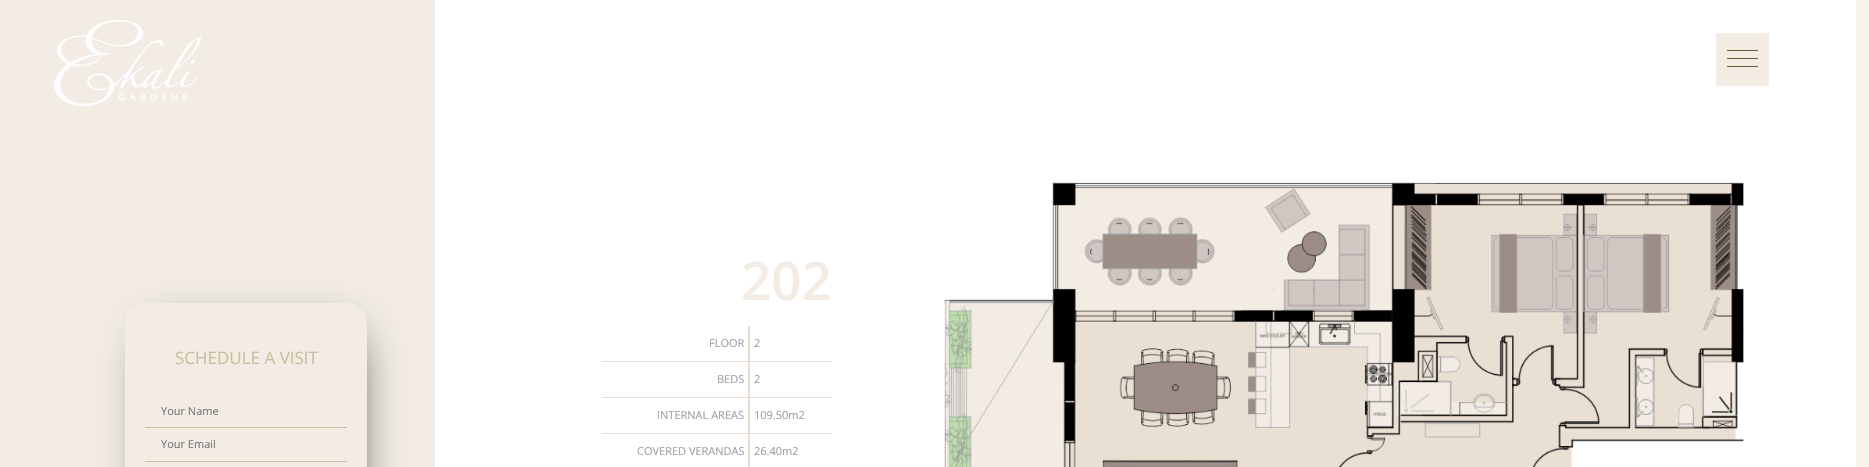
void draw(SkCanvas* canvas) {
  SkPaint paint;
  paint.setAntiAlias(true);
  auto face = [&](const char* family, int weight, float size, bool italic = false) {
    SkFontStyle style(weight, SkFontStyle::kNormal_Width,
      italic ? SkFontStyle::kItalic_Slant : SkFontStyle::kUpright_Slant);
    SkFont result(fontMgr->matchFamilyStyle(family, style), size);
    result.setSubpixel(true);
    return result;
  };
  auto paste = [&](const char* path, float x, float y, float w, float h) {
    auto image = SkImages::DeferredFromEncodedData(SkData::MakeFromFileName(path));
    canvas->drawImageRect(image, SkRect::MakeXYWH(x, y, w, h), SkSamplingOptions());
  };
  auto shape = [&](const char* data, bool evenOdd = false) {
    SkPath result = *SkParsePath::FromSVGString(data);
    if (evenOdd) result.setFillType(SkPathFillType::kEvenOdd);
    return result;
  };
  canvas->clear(0xfff9f3ed);
  paint.setColor(0xfff2ece5);
  canvas->drawRect(SkRect::MakeXYWH(0, 0, 435, 467), paint);
  paste("img/1.png", 54, 20, 147, 86);
  {
    const struct { float x, y, w, h; SkColor color; } items[] = {
      {435, 0, 1421, 467, 0xffffffff},
      {1716, 33, 53, 53, 0xfff2ece5},
      {1727, 58, 31, 1, 0xff73593a},
      {1727, 50, 31, 1, 0xff73593a},
      {1727, 66, 31, 1, 0xff73593a},
    };
    for (auto [x, y, w, h, color] : items) {
      paint.setColor(color);
      canvas->drawRect(SkRect::MakeXYWH(x, y, w, h), paint);
    }
  }
  canvas->save();
  canvas->clipPath(shape("M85 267H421V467H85ZM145 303H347C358 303 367 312 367 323V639C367 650 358 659 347 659H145C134 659 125 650 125 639V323C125 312 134 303 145 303Z", true), true);
  paint.setColor(0xf7000000);
  paint.setMaskFilter(SkMaskFilter::MakeBlur(kNormal_SkBlurStyle, 23.5f));
  canvas->drawRect(SkRect::MakeXYWH(157, 339, 192, 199), paint);
  paint.setMaskFilter(nullptr);
  canvas->restore();
  {
    const struct { float x, y, w, h; SkColor color; } items[] = {
      {145, 427, 202, 1, 0xffcabe9f},
      {145, 461, 202, 1, 0xffcabe9f},
      {748, 326, 2, 35, 0xffe9ded1},
      {602, 361, 230, 1, 0xffe9ded1},
      {748, 362, 2, 35, 0xffe9ded1},
      {602, 397, 230, 1, 0xffe9ded1},
      {748, 398, 2, 35, 0xffe9ded1},
      {602, 433, 230, 1, 0xffe9ded1},
      {748, 434, 2, 33, 0xffe9ded1},
    };
    for (auto [x, y, w, h, color] : items) {
      paint.setColor(color);
      canvas->drawRect(SkRect::MakeXYWH(x, y, w, h), paint);
    }
  }
  paste("img/2.png", 944, 182, 800, 285);
  auto f0 = face("Open Sans", 400, 17);
  paint.setColor(0xffcabe9f);
  canvas->drawString("SCHEDULE A VISIT", 175, 364, f0, paint);
  auto f1 = face("Open Sans", 400, 11);
  paint.setColor(0xff757575);
  canvas->drawString("Your Name", 161, 415, f1, paint);
  canvas->drawString("Your Email", 161, 448, f1, paint);
  auto f2 = face("Open Sans", 600, 53);
  paint.setColor(0xfff2ece5);
  canvas->drawString("202", 741, 300, f2, paint);
  paint.setColor(0xff9ea0a6);
  {
    const struct { const char* s; float x, y; } items[] = {
      {"FLOOR", 709, 347},
      {"2", 754, 347},
      {"BEDS", 717, 383},
      {"2", 754, 383},
      {"INTERNAL AREAS", 657, 419},
      {"109.50m2", 754, 419},
      {"COVERED VERANDAS", 637, 455},
      {"26.40m2", 754, 455},
    };
    for (auto [s, x, y] : items) {
      canvas->drawString(s, x, y, f1, paint);
    }
  }
}
